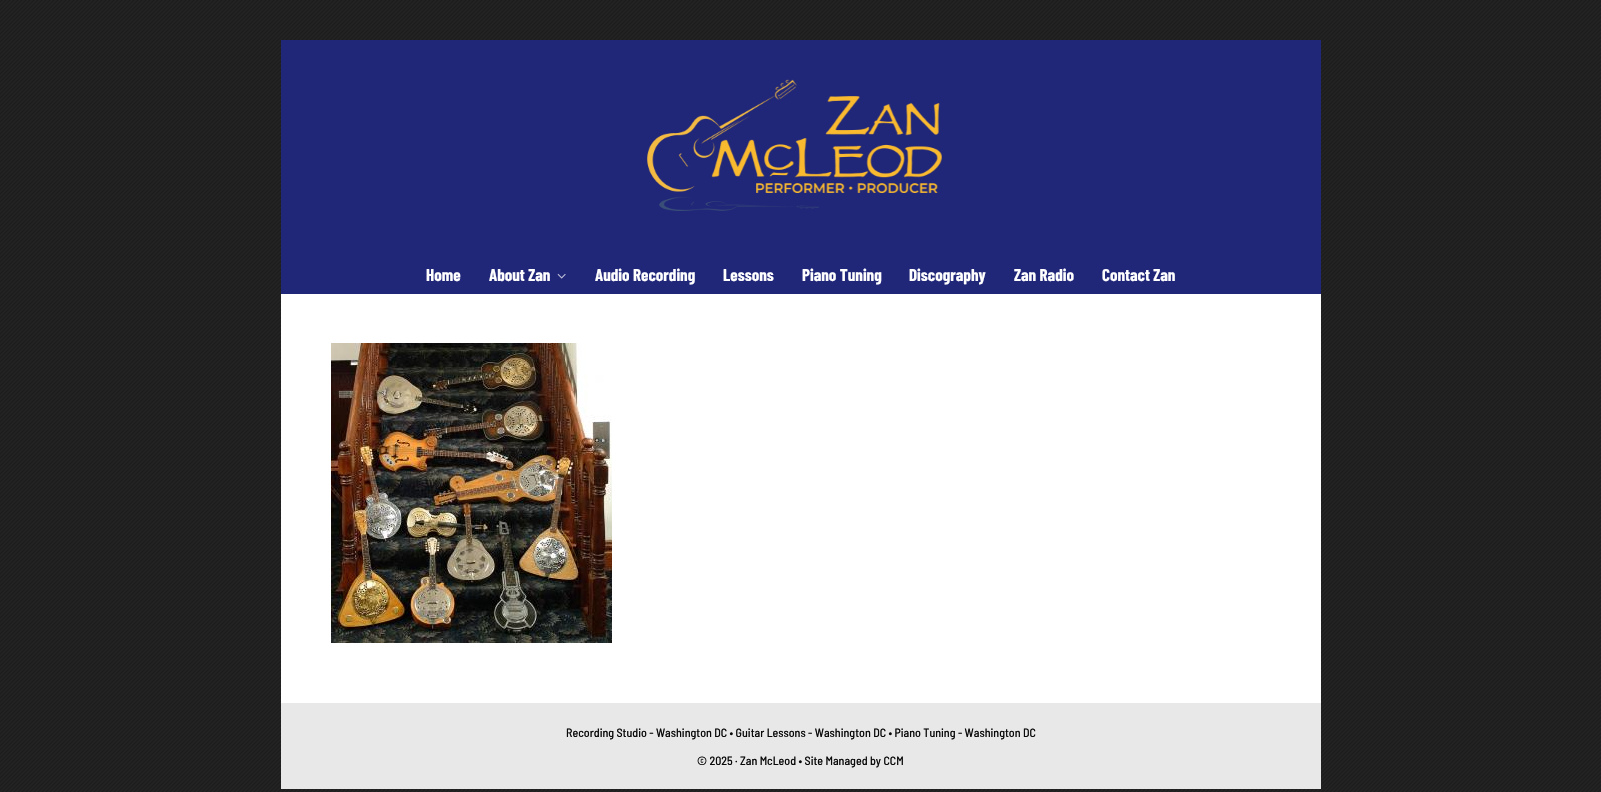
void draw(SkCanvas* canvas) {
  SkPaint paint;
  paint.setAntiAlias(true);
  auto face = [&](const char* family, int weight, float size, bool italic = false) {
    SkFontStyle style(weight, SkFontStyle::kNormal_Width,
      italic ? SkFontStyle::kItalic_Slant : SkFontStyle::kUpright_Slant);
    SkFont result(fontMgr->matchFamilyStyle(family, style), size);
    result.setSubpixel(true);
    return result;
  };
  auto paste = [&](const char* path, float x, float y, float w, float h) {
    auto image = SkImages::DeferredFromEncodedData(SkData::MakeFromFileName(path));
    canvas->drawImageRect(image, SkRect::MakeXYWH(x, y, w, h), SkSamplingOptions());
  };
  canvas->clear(0xffffffff);
  paste("img/1.png", 0, 0, 1601, 792);
  paint.setColor(0xffffffff);
  canvas->drawRect(SkRect::MakeXYWH(281, 294, 1040, 409), paint);
  paint.setColor(0xff202678);
  canvas->drawRect(SkRect::MakeXYWH(281, 40, 1040, 254), paint);
  paste("img/2.png", 647, 79, 295, 132);
  paste("img/3.png", 557, 273, 9, 6);
  paste("img/4.png", 331, 343, 281, 300);
  paint.setColor(0xffe8e8e8);
  canvas->drawRect(SkRect::MakeXYWH(281, 703, 1040, 86), paint);
  auto f0 = face("Barlow Condensed", 700, 17);
  paint.setColor(0xffffffff);
  {
    const struct { const char* s; float x, y; } items[] = {
      {"Home", 426, 281},
      {"About Zan", 489, 281},
      {"Audio Recording", 595, 281},
      {"Lessons", 723, 281},
      {"Piano Tuning", 802, 281},
      {"Discography", 909, 281},
      {"Zan Radio", 1014, 281},
      {"Contact Zan", 1102, 281},
    };
    for (auto [s, x, y] : items) {
      canvas->drawString(s, x, y, f0, paint);
    }
  }
  auto f1 = face("Barlow Semi Condensed", 500, 12);
  paint.setColor(0xff0a0a0a);
  canvas->drawString("Recording Studio - Washington DC • Guitar Lessons - Washington DC • Piano Tuning - Washington DC", 566, 737, f1, paint);
  canvas->drawString("© 2025 · Zan McLeod • Site Managed by CCM", 697, 765, f1, paint);
}
